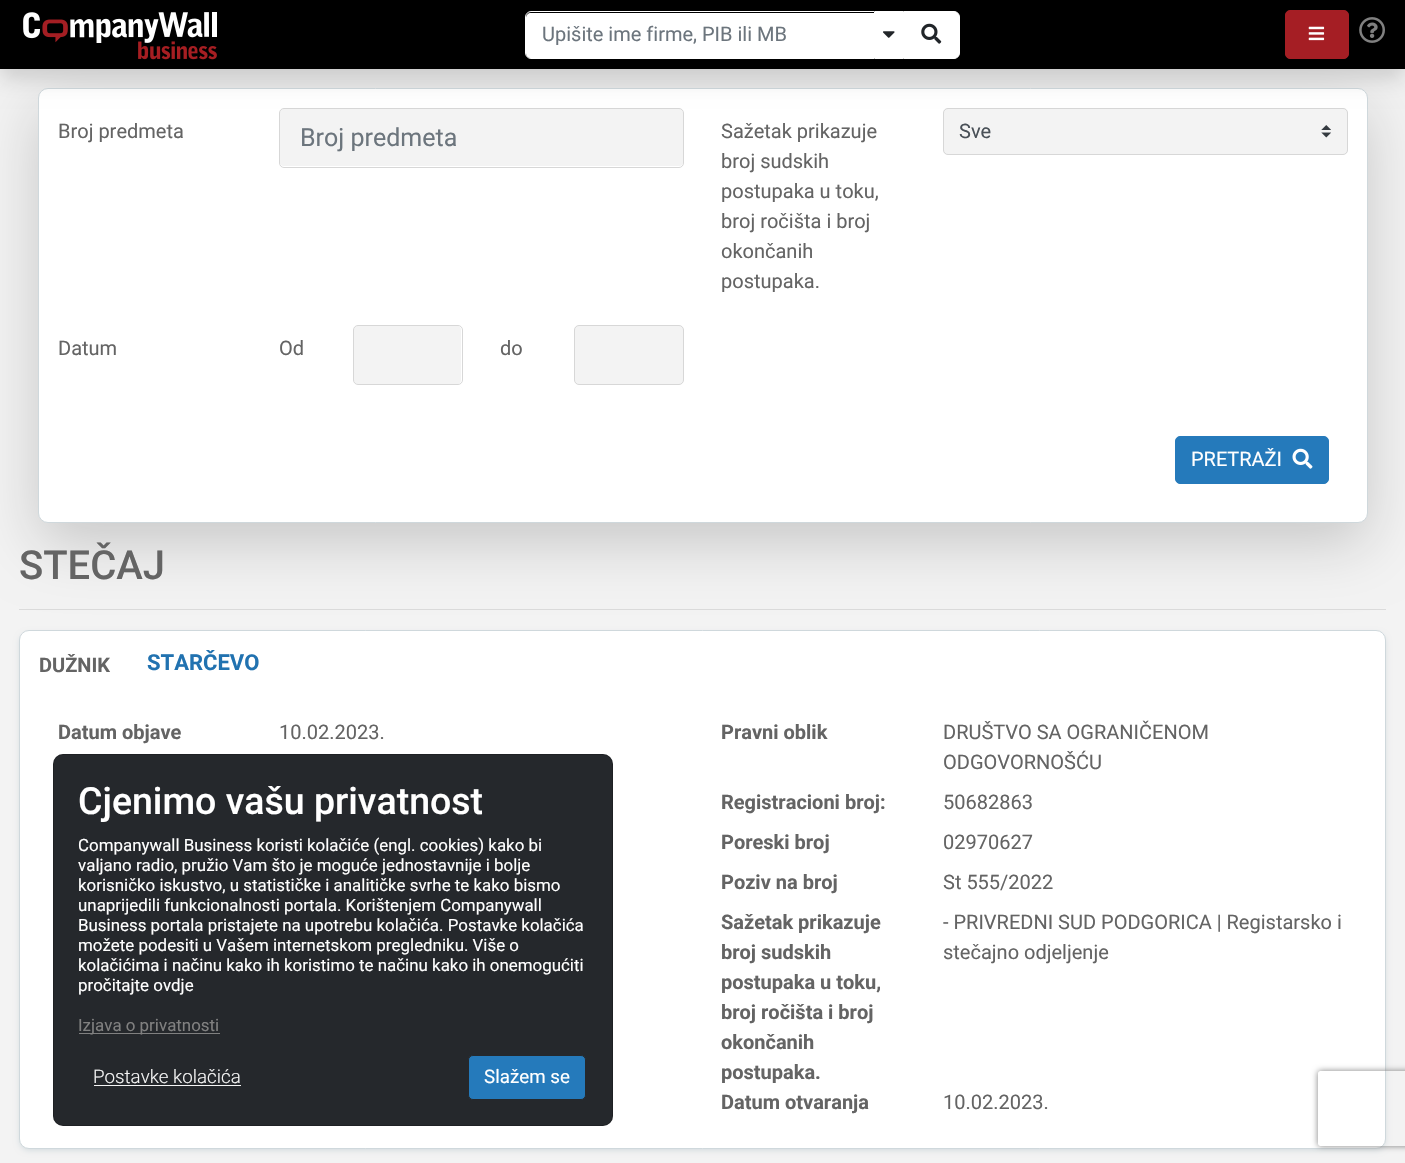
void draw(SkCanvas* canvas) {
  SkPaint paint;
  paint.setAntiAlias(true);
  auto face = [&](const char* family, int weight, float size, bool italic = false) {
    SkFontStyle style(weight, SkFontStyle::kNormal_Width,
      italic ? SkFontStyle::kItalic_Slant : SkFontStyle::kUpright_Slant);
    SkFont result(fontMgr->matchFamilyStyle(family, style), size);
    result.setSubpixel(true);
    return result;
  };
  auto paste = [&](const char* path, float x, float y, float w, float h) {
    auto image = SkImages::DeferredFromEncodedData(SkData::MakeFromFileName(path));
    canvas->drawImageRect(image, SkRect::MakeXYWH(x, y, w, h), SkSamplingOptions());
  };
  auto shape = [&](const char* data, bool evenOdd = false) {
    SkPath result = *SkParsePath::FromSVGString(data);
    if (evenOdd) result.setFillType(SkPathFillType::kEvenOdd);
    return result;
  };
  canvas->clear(0xfff3f3f3);
  paint.setColor(0xffdbdbdb);
  canvas->drawRect(SkRect::MakeXYWH(19, 609, 1367, 1), paint);
  paint.setColor(0x2e000000);
  paint.setMaskFilter(SkMaskFilter::MakeBlur(kNormal_SkBlurStyle, 30));
  canvas->drawRoundRect(SkRect::MakeXYWH(38, 108, 1330, 435), 10, 10, paint);
  paint.setMaskFilter(nullptr);
  paint.setColor(0xffffffff);
  canvas->drawRoundRect(SkRect::MakeXYWH(38.5f, 88.5f, 1329, 434), 9.5f, 9.5f, paint);
  paint.setStroke(true);
  paint.setStrokeWidth(1);
  paint.setColor(0xffcfd8dc);
  canvas->drawRoundRect(SkRect::MakeXYWH(38.5f, 88.5f, 1329, 434), 9.5f, 9.5f, paint);
  paint.setStroke(false);
  paint.setColor(0xfff3f3f3);
  canvas->drawRoundRect(SkRect::MakeXYWH(280, 109, 403, 57), 4, 4, paint);
  paint.setStroke(true);
  paint.setColor(0xffd7d7d7);
  canvas->drawRoundRect(SkRect::MakeXYWH(279.5f, 108.5f, 404, 59), 4.5f, 4.5f, paint);
  paint.setStroke(false);
  paint.setColor(0xfff3f3f3);
  canvas->drawRoundRect(SkRect::MakeXYWH(943, 108, 405, 47), 5, 5, paint);
  paste("img/6.png", 1321, 125, 10, 13);
  paint.setStroke(true);
  paint.setColor(0xffd7d7d7);
  canvas->drawRoundRect(SkRect::MakeXYWH(943.5f, 108.5f, 404, 46), 4.5f, 4.5f, paint);
  paint.setStroke(false);
  paint.setColor(0x26000000);
  paint.setMaskFilter(SkMaskFilter::MakeBlur(kNormal_SkBlurStyle, 10));
  canvas->drawRect(SkRect::MakeXYWH(0, 10, 1405, 69), paint);
  paint.setMaskFilter(nullptr);
  paint.setColor(0xff000000);
  canvas->drawRect(SkRect::MakeXYWH(0, 0, 1405, 69), paint);
  paste("img/1.png", 23, 12, 194, 48);
  paint.setColor(0xffffffff);
  canvas->drawPath(shape("M531 13H874V58H531C528 58 526 56 526 53V18C526 15 528 13 531 13Z"), paint);
  paint.setStroke(true);
  canvas->drawPath(shape("M531 11.5H874.5V58.5H531C528 58.5 525.5 56 525.5 53V17C525.5 14 528 11.5 531 11.5Z"), paint);
  paint.setStroke(false);
  canvas->drawRect(SkRect::MakeXYWH(875, 11, 28, 48), paint);
  paste("img/2.png", 883, 31, 12, 7);
  canvas->drawPath(shape("M903.5 11.5H954C957 11.5 959.5 14 959.5 17V53C959.5 56 957 58.5 954 58.5H903.5Z"), paint);
  paint.setStroke(true);
  canvas->drawPath(shape("M903.5 11.5H954C957 11.5 959.5 14 959.5 17V53C959.5 56 957 58.5 954 58.5H903.5Z"), paint);
  paste("img/3.png", 921, 23, 21, 21);
  paint.setStroke(false);
  paint.setColor(0xffa51e24);
  canvas->drawRoundRect(SkRect::MakeXYWH(1285.5f, 10.5f, 63, 48), 4.5f, 4.5f, paint);
  paint.setStroke(true);
  canvas->drawRoundRect(SkRect::MakeXYWH(1285.5f, 10.5f, 63, 48), 4.5f, 4.5f, paint);
  paste("img/4.png", 1308, 26, 17, 15);
  paste("img/5.png", 1359, 17, 26, 26);
  paint.setStroke(false);
  paint.setColor(0xfff3f3f3);
  canvas->drawRoundRect(SkRect::MakeXYWH(354, 326, 107, 58), 4, 4, paint);
  paint.setStroke(true);
  paint.setColor(0xffd7d7d7);
  canvas->drawRoundRect(SkRect::MakeXYWH(353.5f, 325.5f, 109, 59), 4.5f, 4.5f, paint);
  paint.setStroke(false);
  paint.setColor(0xfff3f3f3);
  canvas->drawRoundRect(SkRect::MakeXYWH(574.5f, 325.5f, 109, 59), 4.5f, 4.5f, paint);
  paint.setStroke(true);
  paint.setColor(0xffd7d7d7);
  canvas->drawRoundRect(SkRect::MakeXYWH(574.5f, 325.5f, 109, 59), 4.5f, 4.5f, paint);
  paint.setStroke(false);
  paint.setColor(0xff257abb);
  canvas->drawRoundRect(SkRect::MakeXYWH(1175.5f, 436.5f, 153, 47), 4.5f, 4.5f, paint);
  paint.setStroke(true);
  canvas->drawRoundRect(SkRect::MakeXYWH(1175.5f, 436.5f, 153, 47), 4.5f, 4.5f, paint);
  paste("img/7.png", 1292, 448, 21, 21);
  paint.setStroke(false);
  paint.setColor(0xffcfd8dc);
  paint.setMaskFilter(SkMaskFilter::MakeBlur(kNormal_SkBlurStyle, 3));
  canvas->drawRoundRect(SkRect::MakeXYWH(20, 634, 1365, 516), 9, 9, paint);
  paint.setMaskFilter(nullptr);
  paint.setColor(0xffffffff);
  canvas->drawRoundRect(SkRect::MakeXYWH(19.5f, 630.5f, 1366, 518), 9.5f, 9.5f, paint);
  paint.setStroke(true);
  paint.setColor(0xffcfd8dc);
  canvas->drawRoundRect(SkRect::MakeXYWH(19.5f, 630.5f, 1366, 518), 9.5f, 9.5f, paint);
  paint.setStroke(false);
  paint.setColor(0xff25282c);
  canvas->drawRoundRect(SkRect::MakeXYWH(53, 754, 560, 372), 10, 10, paint);
  paint.setStroke(true);
  paint.setColor(0x33000000);
  canvas->drawRoundRect(SkRect::MakeXYWH(53.5f, 754.5f, 559, 371), 9.5f, 9.5f, paint);
  paint.setStroke(false);
  paint.setColor(0xff808080);
  canvas->drawRect(SkRect::MakeXYWH(79, 1033, 141, 1), paint);
  paint.setColor(0xfff5f5f5);
  canvas->drawRect(SkRect::MakeXYWH(94, 1085, 147, 1), paint);
  paint.setColor(0xff257abb);
  canvas->drawRoundRect(SkRect::MakeXYWH(468.5f, 1055.5f, 117, 44), 4.5f, 4.5f, paint);
  paint.setStroke(true);
  paint.setColor(0xff25282c);
  canvas->drawRoundRect(SkRect::MakeXYWH(468.5f, 1055.5f, 117, 44), 4.5f, 4.5f, paint);
  canvas->save();
  canvas->clipPath(shape("M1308 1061H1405V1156H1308ZM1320.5 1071H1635.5C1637 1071 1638 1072 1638 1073.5V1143.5C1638 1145 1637 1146 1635.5 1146H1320.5C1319 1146 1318 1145 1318 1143.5V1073.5C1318 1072 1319 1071 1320.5 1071Z", true), true);
  paint.setStroke(false);
  paint.setColor(0xff808080);
  paint.setMaskFilter(SkMaskFilter::MakeBlur(kNormal_SkBlurStyle, 3));
  canvas->drawRoundRect(SkRect::MakeXYWH(1318, 1071, 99, 75), 2.5f, 2.5f, paint);
  paint.setMaskFilter(nullptr);
  canvas->restore();
  auto f0 = face("Roboto", 400, 20);
  paint.setColor(0xff6c757d);
  canvas->drawString("Upišite ime firme, PIB ili MB", 542, 41, f0, paint);
  paint.setColor(0xff646464);
  canvas->drawString("Broj predmeta", 58, 138, f0, paint);
  auto f1 = face("Roboto", 400, 25);
  paint.setColor(0xff6c757d);
  canvas->drawString("Broj predmeta", 300, 146, f1, paint);
  paint.setColor(0xff646464);
  {
    const struct { const char* s; float x, y; } items[] = {
      {"Sažetak prikazuje", 721, 138},
      {"broj sudskih", 721, 168},
      {"postupaka u toku,", 721, 198},
      {"broj ročišta i broj", 721, 228},
      {"okončanih", 721, 258},
      {"postupaka.", 721, 288},
    };
    for (auto [s, x, y] : items) {
      canvas->drawString(s, x, y, f0, paint);
    }
  }
  paint.setColor(0xff495057);
  canvas->drawString("Sve", 959, 138, f0, paint);
  paint.setColor(0xff646464);
  {
    const struct { const char* s; float x, y; } items[] = {
      {"Datum", 58, 355},
      {"Od", 279, 355},
      {"do", 500, 355},
    };
    for (auto [s, x, y] : items) {
      canvas->drawString(s, x, y, f0, paint);
    }
  }
  paint.setColor(0xffffffff);
  canvas->drawString("PRETRAŽI", 1191, 466, f0, paint);
  auto f2 = face("Roboto", 500, 40);
  paint.setColor(0xff646464);
  canvas->drawString("STEČAJ", 19, 579, f2, paint);
  auto f3 = face("Roboto", 700, 20);
  canvas->drawString("DUŽNIK", 39, 672, f3, paint);
  auto f4 = face("Roboto", 700, 22);
  paint.setColor(0xff2172b0);
  canvas->drawString("STARČEVO", 147, 670, f4, paint);
  paint.setColor(0xff646464);
  canvas->drawString("Datum objave", 58, 739, f3, paint);
  canvas->drawString("10.02.2023.", 279, 739, f0, paint);
  canvas->drawString("Pravni oblik", 721, 739, f3, paint);
  canvas->drawString("DRUŠTVO SA OGRANIČENOM", 943, 739, f0, paint);
  canvas->drawString("ODGOVORNOŠĆU", 943, 769, f0, paint);
  canvas->drawString("Registracioni broj:", 721, 809, f3, paint);
  canvas->drawString("50682863", 943, 809, f0, paint);
  canvas->drawString("Poreski broj", 721, 849, f3, paint);
  canvas->drawString("02970627", 943, 849, f0, paint);
  canvas->drawString("Poziv na broj", 721, 889, f3, paint);
  canvas->drawString("St 555/2022", 943, 889, f0, paint);
  {
    const struct { const char* s; float x, y; } items[] = {
      {"Sažetak prikazuje", 721, 929},
      {"broj sudskih", 721, 959},
      {"postupaka u toku,", 721, 989},
      {"broj ročišta i broj", 721, 1019},
      {"okončanih", 721, 1049},
      {"postupaka.", 721, 1079},
    };
    for (auto [s, x, y] : items) {
      canvas->drawString(s, x, y, f3, paint);
    }
  }
  canvas->drawString("- PRIVREDNI SUD PODGORICA | Registarsko i", 943, 929, f0, paint);
  canvas->drawString("stečajno odjeljenje", 943, 959, f0, paint);
  canvas->drawString("Datum otvaranja", 721, 1109, f3, paint);
  canvas->drawString("10.02.2023.", 943, 1109, f0, paint);
  auto f5 = face("Roboto", 500, 37.5f);
  paint.setColor(0xffffffff);
  canvas->drawString("Cjenimo vašu privatnost", 78, 814, f5, paint);
  auto f6 = face("Roboto", 400, 16.9f);
  {
    const struct { const char* s; float x, y; } items[] = {
      {"Companywall Business koristi kolačiće (engl. cookies) kako bi", 78, 851},
      {"valjano radio, pružio Vam što je moguće jednostavnije i bolje", 78, 871},
      {"korisničko iskustvo, u statističke i analitičke svrhe te kako bismo", 78, 891},
      {"unaprijedili funkcionalnosti portala. Korištenjem Companywall", 78, 911},
      {"Business portala pristajete na upotrebu kolačića. Postavke kolačića", 78, 931},
      {"možete podesiti u Vašem internetskom pregledniku. Više o", 78, 951},
      {"kolačićima i načinu kako ih koristimo te načinu kako ih onemogućiti", 78, 971},
      {"pročitajte ovdje", 78, 991},
    };
    for (auto [s, x, y] : items) {
      canvas->drawString(s, x, y, f6, paint);
    }
  }
  paint.setColor(0xff808080);
  canvas->drawString("Izjava o privatnosti", 78, 1031, f6, paint);
  auto f7 = face("Roboto", 300, 18.75f);
  paint.setColor(0xfff5f5f5);
  canvas->drawString("Postavke kolačića", 93, 1083, f7, paint);
  auto f8 = face("Roboto", 400, 18.75f);
  paint.setColor(0xffffffff);
  canvas->drawString("Slažem se", 484, 1083, f8, paint);
}
